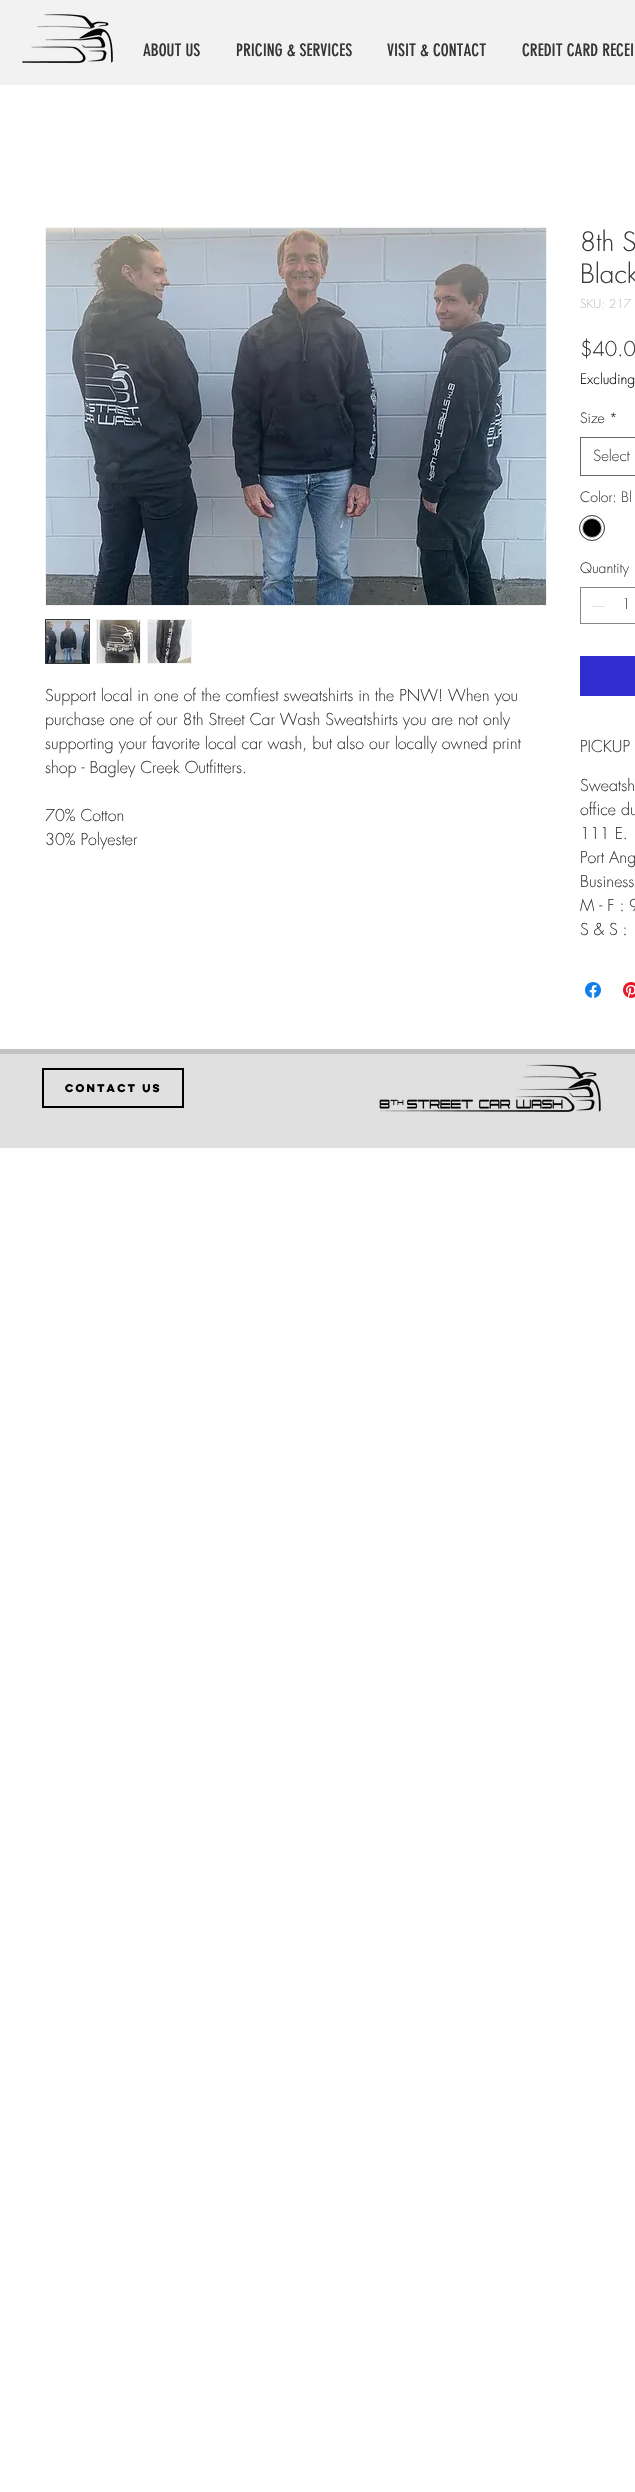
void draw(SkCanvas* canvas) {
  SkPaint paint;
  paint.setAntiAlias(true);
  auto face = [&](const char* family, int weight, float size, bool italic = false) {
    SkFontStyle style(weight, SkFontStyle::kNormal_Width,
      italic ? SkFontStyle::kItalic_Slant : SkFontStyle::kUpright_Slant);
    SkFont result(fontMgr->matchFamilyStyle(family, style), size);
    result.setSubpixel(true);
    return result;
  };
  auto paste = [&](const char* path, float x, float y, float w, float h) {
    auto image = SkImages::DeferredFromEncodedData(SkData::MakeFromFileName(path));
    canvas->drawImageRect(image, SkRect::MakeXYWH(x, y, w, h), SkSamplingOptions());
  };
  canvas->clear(0xffffffff);
  paint.setColor(0xfff2f2f2);
  canvas->drawRect(SkRect::MakeXYWH(0, 0, 635, 85), paint);
  paste("img/1.png", 22, 14, 91, 50);
  paint.setStroke(true);
  paint.setStrokeWidth(1);
  canvas->drawRect(SkRect::MakeXYWH(45.5f, 227.5f, 501, 378), paint);
  paste("img/2.png", 46, 228, 500, 377);
  paint.setColor(0xff363636);
  canvas->drawRect(SkRect::MakeXYWH(45.5f, 619.5f, 44, 44), paint);
  paste("img/3.png", 46, 620, 43, 43);
  paint.setStroke(false);
  paint.setColor(0xfff2f2f2);
  canvas->drawRect(SkRect::MakeXYWH(96, 619, 45, 45), paint);
  paste("img/4.png", 97, 620, 43, 43);
  canvas->drawRect(SkRect::MakeXYWH(147, 619, 45, 45), paint);
  paste("img/5.png", 148, 620, 43, 43);
  paint.setStroke(true);
  paint.setColor(0xff666666);
  canvas->drawRect(SkRect::MakeXYWH(580.5f, 437.5f, 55, 38), paint);
  paint.setColor(0xff363636);
  canvas->drawCircle(592, 528, 12.5f, paint);
  paint.setStroke(false);
  paint.setColor(0xff000000);
  canvas->drawCircle(592, 528, 9.5f, paint);
  paint.setStroke(true);
  paint.setColor(0xffc9c9c9);
  canvas->drawCircle(592, 528, 9.5f, paint);
  paint.setColor(0xff868686);
  canvas->drawRect(SkRect::MakeXYWH(580.5f, 587.5f, 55, 36), paint);
  paint.setStroke(false);
  paint.setColor(0xffe3e3e3);
  canvas->drawRect(SkRect::MakeXYWH(592, 606, 13, 1), paint);
  paint.setColor(0xff312ed1);
  canvas->drawRect(SkRect::MakeXYWH(580, 656, 55, 40), paint);
  paste("img/6.png", 585, 982, 16, 16);
  paste("img/7.png", 623, 982, 12, 16);
  paint.setColor(0xffe0e0e0);
  canvas->drawRect(SkRect::MakeXYWH(0, 1054, 635, 94), paint);
  paint.setColor(0xffc4c2c2);
  canvas->drawRect(SkRect::MakeXYWH(0, 1049, 635, 5), paint);
  paint.setStroke(true);
  paint.setStrokeWidth(2);
  paint.setColor(0xff000000);
  canvas->drawRect(SkRect::MakeXYWH(43, 1069, 140, 38), paint);
  paste("img/8.png", 379, 1064, 222, 48);
  auto f0 = face("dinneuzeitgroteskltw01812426", 400, 17);
  paint.setStroke(false);
  paint.setColor(0xff363636);
  {
    const struct { const char* s; float x, y; } items[] = {
      {"ABOUT US", 143, 56},
      {"PRICING & SERVICES", 236, 56},
      {"VISIT & CONTACT", 387, 56},
      {"CREDIT CARD RECEI", 522, 56},
    };
    for (auto [s, x, y] : items) {
      canvas->drawString(s, x, y, f0, paint);
    }
  }
  auto f1 = face("futura", 300, 16);
  {
    const struct { const char* s; float x, y; } items[] = {
      {"Support local in one of the comfiest sweatshirts in the PNW! When you", 45, 701},
      {"purchase one of our 8th Street Car Wash Sweatshirts you are not only", 45, 725},
      {"supporting your favorite local car wash, but also our locally owned print", 45, 749},
      {"shop - Bagley Creek Outfitters.", 45, 773},
      {"70% Cotton", 45, 821},
      {"30% Polyester", 45, 845},
    };
    for (auto [s, x, y] : items) {
      canvas->drawString(s, x, y, f1, paint);
    }
  }
  auto f2 = face("futura", 300, 26);
  canvas->drawString("8th S", 580, 251, f2, paint);
  canvas->drawString("Black", 580, 283, f2, paint);
  auto f3 = face("futura", 300, 12);
  paint.setColor(0xffc4c2c2);
  canvas->drawString("SKU: 217", 580, 308, f3, paint);
  auto f4 = face("futura", 300, 20);
  paint.setColor(0xff363636);
  canvas->drawString("$40.0", 580, 356, f4, paint);
  auto f5 = face("futura", 300, 14);
  paint.setColor(0xff000000);
  canvas->drawString("Excluding", 580, 384, f5, paint);
  paint.setColor(0xff363636);
  canvas->drawString("Size", 580, 423, f5, paint);
  canvas->drawString("*", 609, 423, f5, paint);
  auto f6 = face("futura", 300, 15);
  paint.setColor(0xff444444);
  canvas->drawString("Select", 593, 461, f6, paint);
  paint.setColor(0xff363636);
  {
    const struct { const char* s; float x, y; } items[] = {
      {"Color: Bl", 580, 502},
      {"Quantity", 580, 573},
      {"1", 622, 609},
    };
    for (auto [s, x, y] : items) {
      canvas->drawString(s, x, y, f5, paint);
    }
  }
  {
    const struct { const char* s; float x, y; } items[] = {
      {"PICKUP", 580, 752},
      {"Sweatsh", 580, 791},
      {"office du", 580, 815},
      {"111 E.", 580, 839},
      {"Port Ang", 580, 863},
      {"Business", 580, 887},
      {"M - F : 9", 580, 911},
      {"S & S :", 580, 935},
    };
    for (auto [s, x, y] : items) {
      canvas->drawString(s, x, y, f1, paint);
    }
  }
  auto f7 = face("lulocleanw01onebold", 700, 10);
  paint.setColor(0xff000000);
  canvas->drawString("CONTACT US", 65, 1092, f7, paint);
}
